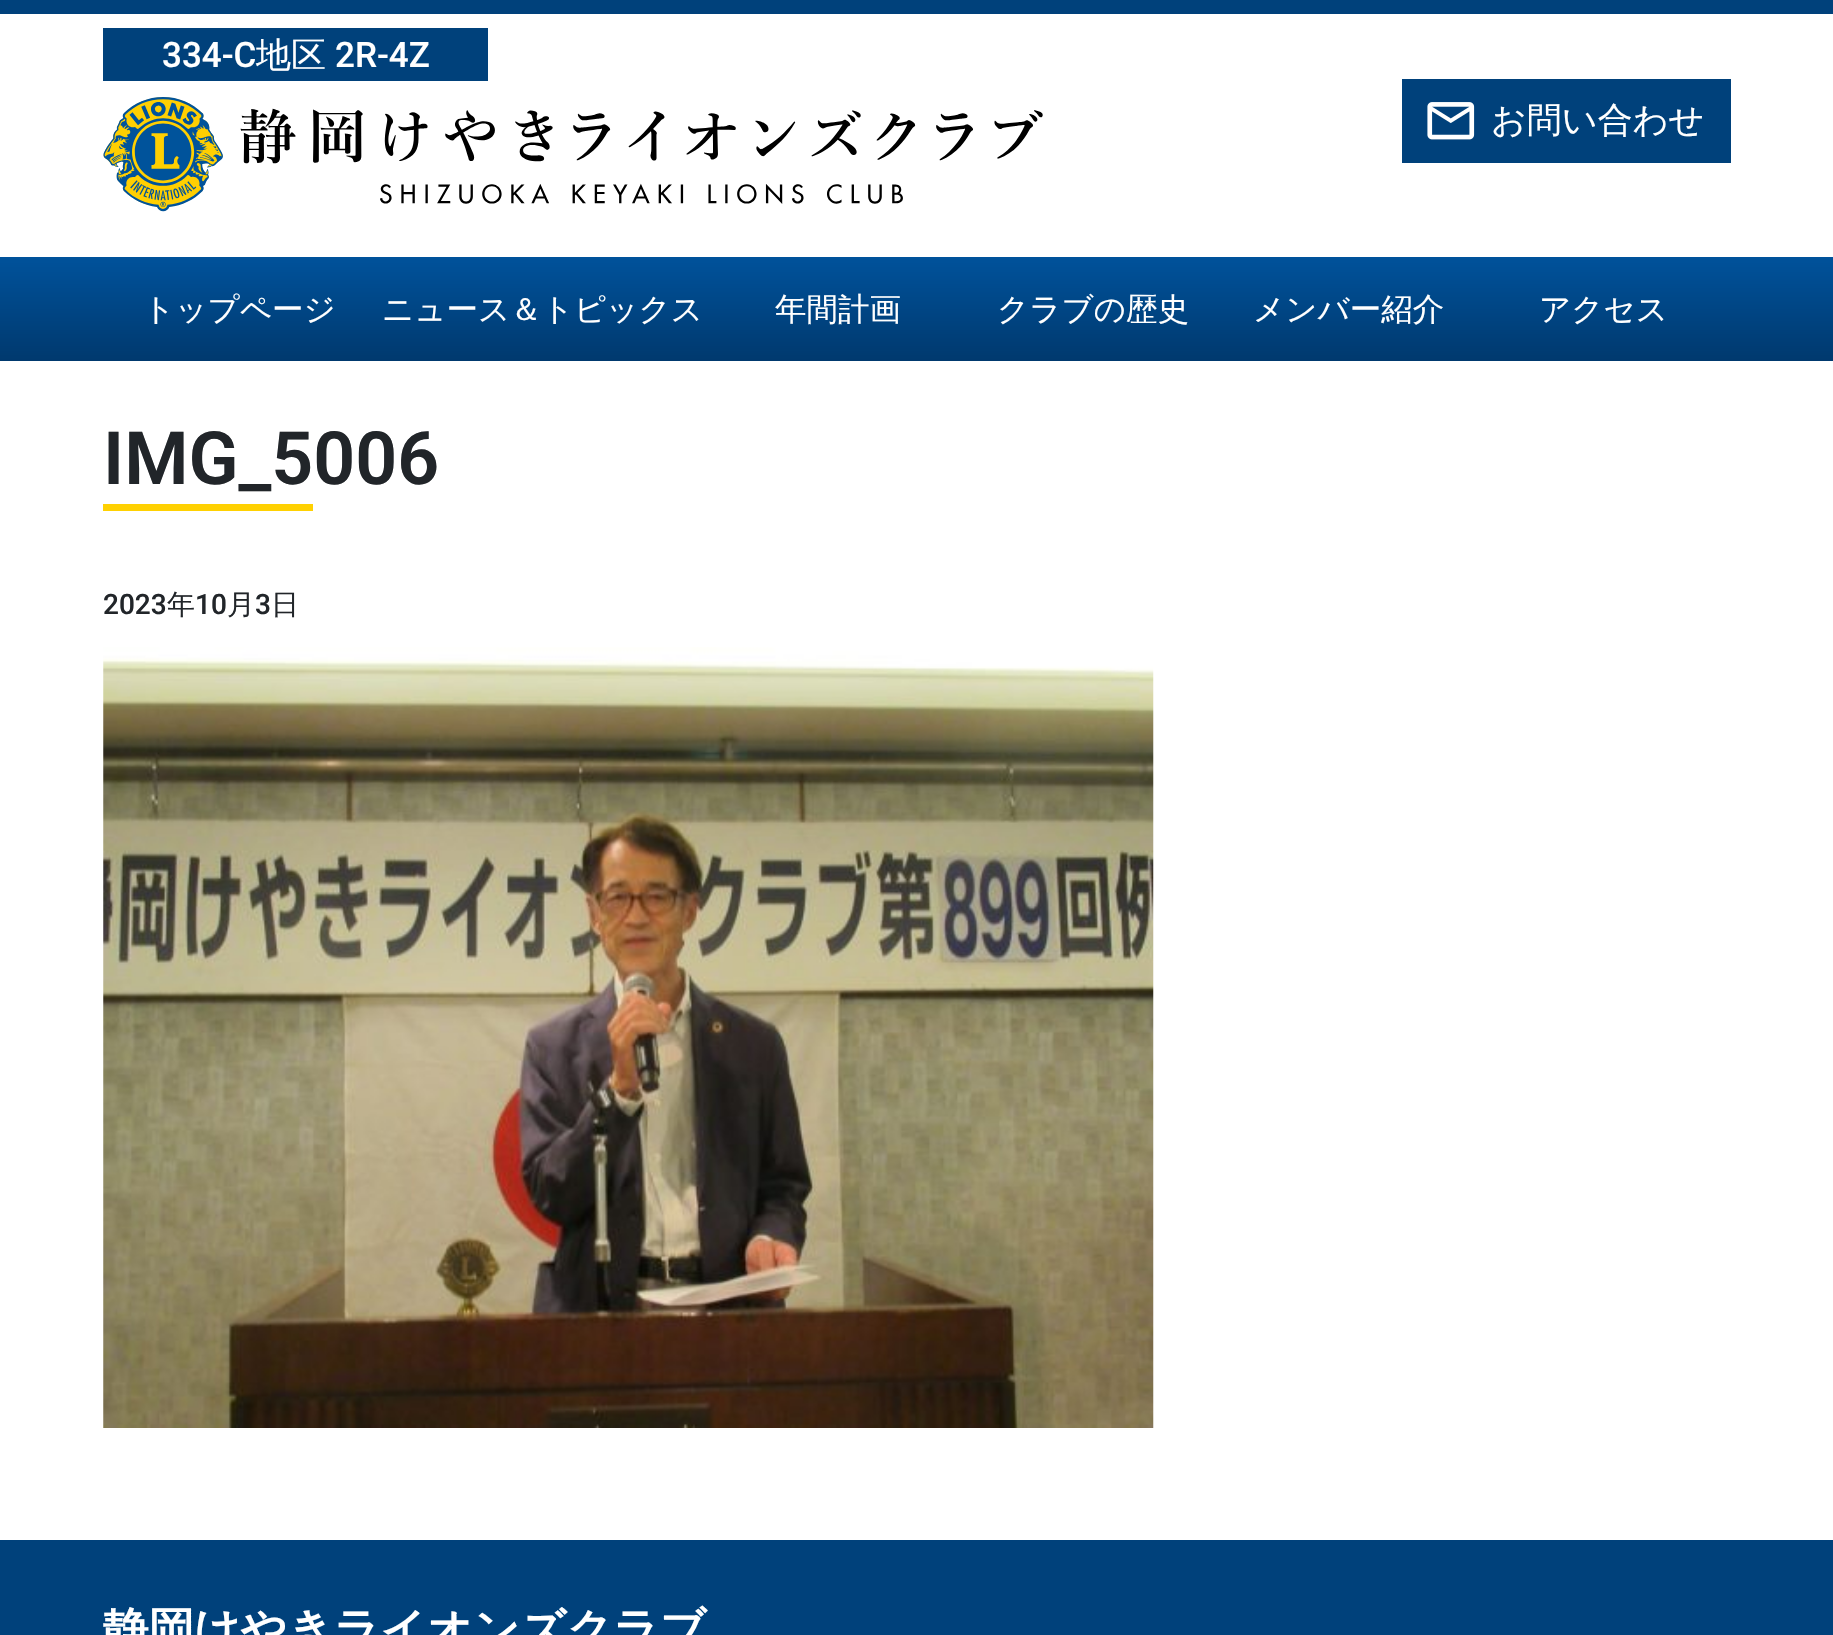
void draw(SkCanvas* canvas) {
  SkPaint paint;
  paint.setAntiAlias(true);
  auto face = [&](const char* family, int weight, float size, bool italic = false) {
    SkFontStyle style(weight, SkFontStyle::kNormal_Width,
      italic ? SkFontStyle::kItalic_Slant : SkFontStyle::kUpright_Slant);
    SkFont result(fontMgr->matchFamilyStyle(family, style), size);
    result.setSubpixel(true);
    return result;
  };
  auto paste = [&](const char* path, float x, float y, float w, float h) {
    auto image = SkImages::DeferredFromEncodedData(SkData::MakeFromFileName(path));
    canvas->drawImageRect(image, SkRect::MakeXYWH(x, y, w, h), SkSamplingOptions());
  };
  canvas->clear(0xffffffff);
  paint.setColor(0xff00417b);
  canvas->drawRect(SkRect::MakeXYWH(0, 0, 1833, 14), paint);
  canvas->drawRect(SkRect::MakeXYWH(103, 28, 385, 53), paint);
  paste("img/1.png", 103, 97, 940, 115);
  canvas->drawRect(SkRect::MakeXYWH(1402, 79, 329, 84), paint);
  paste("img/2.png", 1427, 102, 48, 38);
  {
    const SkColor colors[] = {0xff00529b, 0xff00396e};
    const float stops[] = {0, 1};
    const SkPoint ends[] = {{917, 257}, {917, 361}};
    paint.setShader(SkGradientShader::MakeLinear(ends, colors, stops, 2, SkTileMode::kClamp));
    paint.setAlpha(255);
  }
  canvas->drawRect(SkRect::MakeXYWH(0, 257, 1833, 104), paint);
  paint.setShader(nullptr);
  paint.setColor(0xffffd101);
  canvas->drawRect(SkRect::MakeXYWH(103, 504, 210, 7), paint);
  paste("img/3.png", 103, 647, 1051, 781);
  paint.setColor(0xff00417b);
  canvas->drawRect(SkRect::MakeXYWH(0, 1540, 1833, 95), paint);
  auto f0 = face("Roboto", 500, 35);
  paint.setColor(0xffffffff);
  canvas->drawString("334-C", 162, 67, f0, paint);
  auto f1 = face("WenQuanYi Zen Hei", 500, 35);
  canvas->drawString("地区", 256, 67, f1, paint);
  canvas->drawString("2R-4Z", 335, 67, f0, paint);
  canvas->drawString("お問い合わせ", 1491, 132, f1, paint);
  auto f2 = face("WenQuanYi Zen Hei", 500, 31.5f);
  {
    const struct { const char* s; float x, y; } items[] = {
      {"トップページ", 143, 320},
      {"ニュース＆トピックス", 382, 320},
      {"年間計画", 775, 320},
      {"クラブの歴史", 997, 320},
      {"メンバー紹介", 1253, 320},
      {"アクセス", 1539, 320},
    };
    for (auto [s, x, y] : items) {
      canvas->drawString(s, x, y, f2, paint);
    }
  }
  auto f3 = face("Roboto", 600, 73.5f);
  paint.setColor(0xff212529);
  canvas->drawString("IMG_5006", 103, 484, f3, paint);
  auto f4 = face("Roboto", 500, 28);
  canvas->drawString("2023", 103, 614, f4, paint);
  auto f5 = face("WenQuanYi Zen Hei", 500, 28);
  canvas->drawString("年", 167, 614, f5, paint);
  canvas->drawString("10", 195, 614, f4, paint);
  canvas->drawString("月", 227, 614, f5, paint);
  canvas->drawString("3", 255, 614, f4, paint);
  canvas->drawString("日", 271, 614, f5, paint);
  auto f6 = face("WenQuanYi Zen Hei", 700, 45.5f);
  paint.setColor(0xffffffff);
  canvas->drawString("静岡けやきライオンズクラブ", 103, 1645, f6, paint);
}
